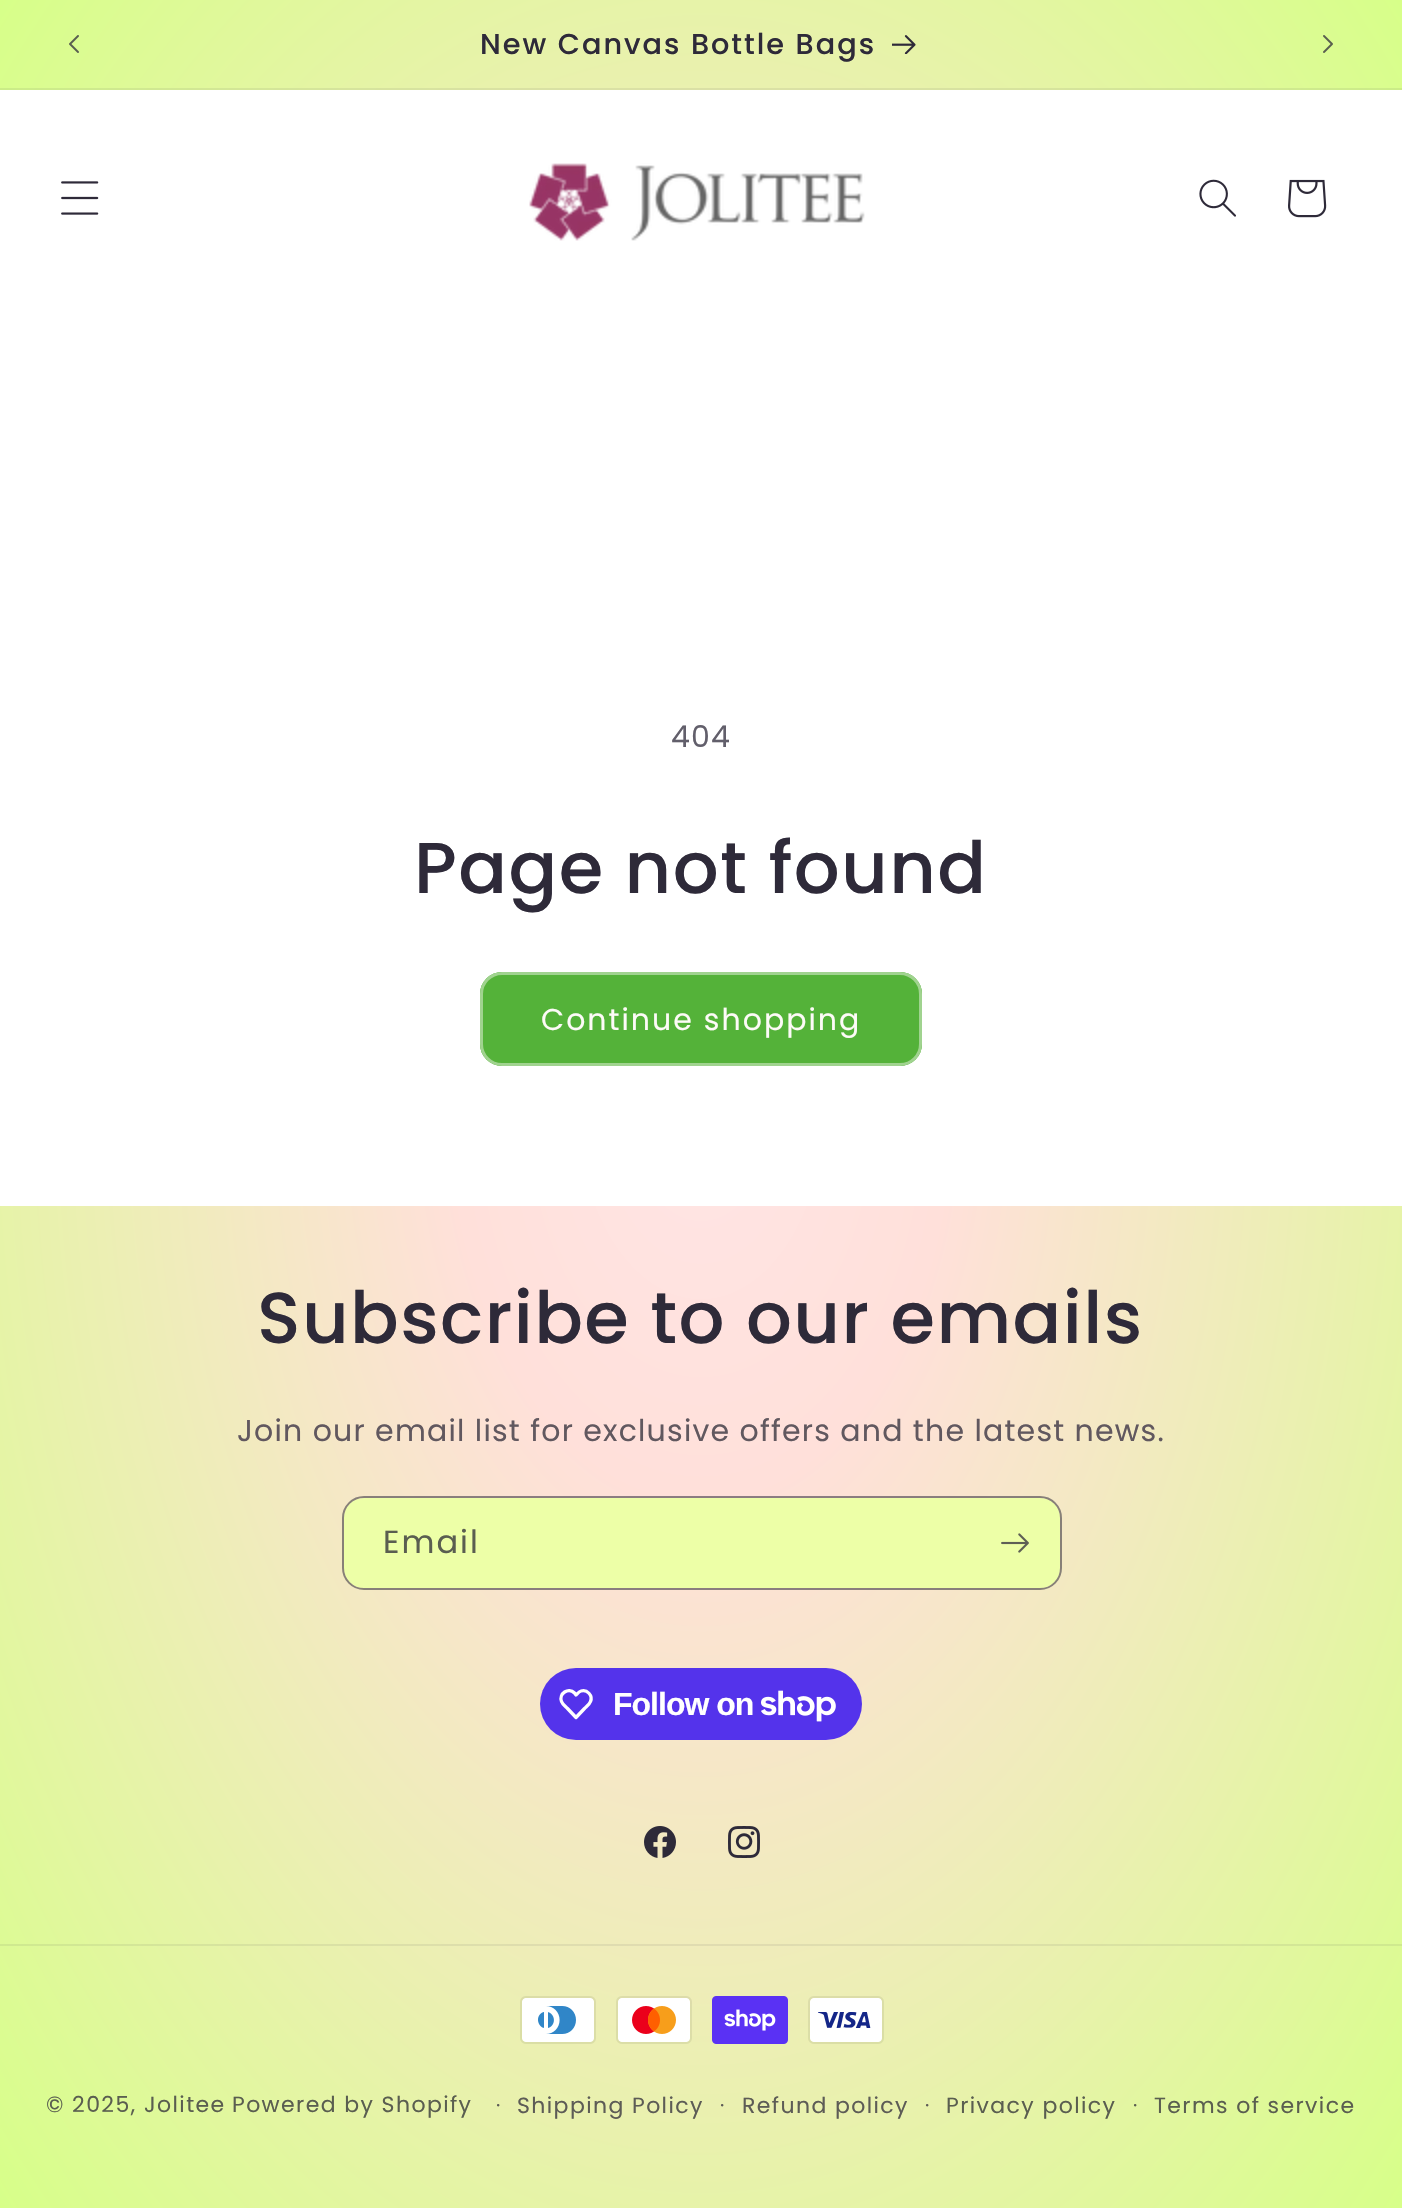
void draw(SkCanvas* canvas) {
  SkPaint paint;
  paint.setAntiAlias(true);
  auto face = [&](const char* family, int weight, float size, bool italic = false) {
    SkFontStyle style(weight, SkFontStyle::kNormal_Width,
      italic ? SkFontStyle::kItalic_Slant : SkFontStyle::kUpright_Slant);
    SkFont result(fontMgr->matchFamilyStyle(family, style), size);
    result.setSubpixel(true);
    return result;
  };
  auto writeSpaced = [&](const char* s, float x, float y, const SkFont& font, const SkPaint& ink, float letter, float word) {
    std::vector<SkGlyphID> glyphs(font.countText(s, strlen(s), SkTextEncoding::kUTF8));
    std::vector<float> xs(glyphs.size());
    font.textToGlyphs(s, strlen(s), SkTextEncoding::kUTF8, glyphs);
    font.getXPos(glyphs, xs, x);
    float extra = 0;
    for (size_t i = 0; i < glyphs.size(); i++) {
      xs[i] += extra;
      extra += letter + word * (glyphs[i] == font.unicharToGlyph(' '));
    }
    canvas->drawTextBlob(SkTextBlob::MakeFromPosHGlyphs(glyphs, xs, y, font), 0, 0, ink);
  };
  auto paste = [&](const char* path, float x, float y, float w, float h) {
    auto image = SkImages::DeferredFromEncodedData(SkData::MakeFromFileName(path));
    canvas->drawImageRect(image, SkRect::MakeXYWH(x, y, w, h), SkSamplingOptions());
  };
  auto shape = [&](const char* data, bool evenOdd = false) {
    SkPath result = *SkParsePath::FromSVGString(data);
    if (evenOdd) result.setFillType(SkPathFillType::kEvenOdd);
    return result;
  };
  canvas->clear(0xffffffff);
  {
    const SkColor colors[] = {0xffffe5e5, 0xffffe0da, 0xffd7ff89};
    const float stops[] = {0, 0.25f, 1};
    SkMatrix m = SkMatrix::Translate(701, 1104).preScale(991, 1561);
    paint.setShader(SkGradientShader::MakeRadial({0, 0}, 1, colors, stops, 3, SkTileMode::kClamp, 0, &m));
    paint.setAlpha(255);
  }
  canvas->drawRect(SkRect::MakeXYWH(0, 0, 1402, 88), paint);
  {
    const SkColor colors[] = {0xffeed6d7, 0xffeed1cd, 0xffc9ee83};
    const float stops[] = {0, 0.25f, 1};
    SkMatrix m = SkMatrix::Translate(701, 1104).preScale(991, 1561);
    paint.setShader(SkGradientShader::MakeRadial({0, 0}, 1, colors, stops, 3, SkTileMode::kClamp, 0, &m));
    paint.setAlpha(255);
  }
  canvas->drawRect(SkRect::MakeXYWH(0, 88, 1402, 2), paint);
  paste("img/1.png", 69, 35, 10, 18);
  paste("img/2.png", 892, 35, 24, 19);
  paste("img/3.png", 1323, 35, 10, 18);
  paste("img/4.png", 61, 181, 38, 34);
  paste("img/5.png", 529, 163, 336, 78);
  paste("img/6.png", 1199, 179, 37, 38);
  paste("img/7.png", 1288, 179, 39, 39);
  paint.setShader(nullptr);
  paint.setColor(0xff54b239);
  canvas->drawRoundRect(SkRect::MakeXYWH(480, 972, 442, 94), 22, 22, paint);
  paint.setStroke(true);
  paint.setStrokeWidth(2);
  canvas->drawRoundRect(SkRect::MakeXYWH(481, 973, 440, 92), 21, 21, paint);
  paint.setStrokeWidth(3);
  paint.setColor(0x73fdfbf7);
  canvas->drawRoundRect(SkRect::MakeXYWH(481.5f, 973.5f, 439, 91), 20.5f, 20.5f, paint);
  paint.setStroke(false);
  {
    const SkColor colors[] = {0xffffe5e5, 0xffffe0da, 0xffd7ff89};
    const float stops[] = {0, 0.25f, 1};
    SkMatrix m = SkMatrix::Translate(701, 1104).preScale(991, 1561);
    paint.setShader(SkGradientShader::MakeRadial({0, 0}, 1, colors, stops, 3, SkTileMode::kClamp, 0, &m));
    paint.setAlpha(255);
  }
  canvas->drawRect(SkRect::MakeXYWH(0, 1206, 1402, 396), paint);
  paint.setShader(nullptr);
  paint.setColor(0xffedffa7);
  canvas->drawRoundRect(SkRect::MakeXYWH(344, 1498, 716, 90), 20, 20, paint);
  paint.setStroke(true);
  paint.setStrokeWidth(2);
  paint.setColor(0x8c2e2a39);
  canvas->drawRoundRect(SkRect::MakeXYWH(343, 1497, 718, 92), 21, 21, paint);
  paste("img/8.png", 1001, 1533, 28, 20);
  paint.setStroke(false);
  {
    const SkColor colors[] = {0xffffe5e5, 0xffffe0da, 0xffd7ff89};
    const float stops[] = {0, 0.25f, 1};
    SkMatrix m = SkMatrix::Translate(701, 1104).preScale(991, 1561);
    paint.setShader(SkGradientShader::MakeRadial({0, 0}, 1, colors, stops, 3, SkTileMode::kClamp, 0, &m));
    paint.setAlpha(255);
  }
  canvas->drawRect(SkRect::MakeXYWH(0, 1602, 1402, 606), paint);
  {
    const SkColor colors[] = {0xffeed6d7, 0xffeed1cd, 0xffc9ee83};
    const float stops[] = {0, 0.25f, 1};
    SkMatrix m = SkMatrix::Translate(701, 1104).preScale(991, 1561);
    paint.setShader(SkGradientShader::MakeRadial({0, 0}, 1, colors, stops, 3, SkTileMode::kClamp, 0, &m));
    paint.setAlpha(255);
  }
  canvas->drawRect(SkRect::MakeXYWH(0, 1944, 1402, 2), paint);
  paint.setShader(nullptr);
  paint.setColor(0xff5433eb);
  canvas->drawRoundRect(SkRect::MakeXYWH(540, 1668, 322, 72), 36, 36, paint);
  paint.setStroke(true);
  paint.setStrokeWidth(3.3f);
  paint.setStrokeJoin(SkPaint::kRound_Join);
  paint.setColor(0xffffffff);
  canvas->drawPath(shape("M574.5 1693L576 1695C577.5 1693.5 579 1691.5 581 1691C587 1689 593 1695.5 590.5 1701.5C589.5 1704.5 586.5 1706.5 584.5 1708.5L576 1717.5L567.5 1708.5C565.5 1706.5 562.5 1704.5 561.5 1701.5C558.5 1693.5 568.5 1687 574.5 1693Z"), paint);
  paste("img/9.png", 761, 1690, 75, 32);
  paste("img/10.png", 644, 1826, 32, 32);
  paste("img/11.png", 728, 1826, 32, 32);
  paste("img/12.png", 520, 1996, 76, 48);
  paste("img/13.png", 616, 1996, 76, 48);
  paste("img/14.png", 712, 1996, 76, 48);
  paste("img/15.png", 808, 1996, 76, 48);
  auto f0 = face("Poppins", 500, 28.75f);
  paint.setStroke(false);
  paint.setColor(0xff2e2a39);
  writeSpaced("New Canvas Bottle Bags", 480, 54, f0, paint, 2, 0);
  auto f1 = face("Poppins", 400, 30);
  paint.setColor(0xff625f6b);
  writeSpaced("404", 671, 747, f1, paint, 1.2f, 0);
  auto f2 = face("Poppins", 500, 72);
  paint.setColor(0xff2e2a39);
  writeSpaced("Page not found", 414, 893, f2, paint, 1.4f, 0);
  paint.setColor(0xfffdfbf7);
  writeSpaced("Continue shopping", 541, 1030, f1, paint, 2, 0);
  paint.setColor(0xff2e2a39);
  writeSpaced("Subscribe to our emails", 257, 1343, f2, paint, 1.4f, 0);
  paint.setColor(0xff61585f);
  writeSpaced("Join our email list for exclusive offers and the latest news.", 237, 1441, f1, paint, 1.2f, 0);
  auto f3 = face("Poppins", 400, 32);
  paint.setColor(0xff5a5e50);
  writeSpaced("Email", 383, 1553, f3, paint, 2, 0);
  auto f4 = face("Liberation Sans", 700, 32);
  paint.setColor(0xffffffff);
  writeSpaced("Follow on", 613, 1715, f4, paint, -1, 0);
  auto f5 = face("Poppins", 400, 22);
  paint.setColor(0xff5a5e50);
  {
    const struct { const char* s; float x, y; } items[] = {
      {"© 2025,", 46, 2112},
      {"Jolitee", 144, 2112},
      {"Powered by Shopify", 232, 2112},
    };
    for (auto [s, x, y] : items) {
      writeSpaced(s, x, y, f5, paint, 1.4f, 0);
    }
  }
  auto f6 = face("Poppins", 400, 20);
  paint.setColor(0xff5d5c56);
  writeSpaced("·", 496, 2112, f6, paint, 1.4f, 0);
  writeSpaced("Shipping Policy", 517, 2113, f5, paint, 1.4f, 0);
  writeSpaced("·", 720, 2112, f6, paint, 1.4f, 0);
  writeSpaced("Refund policy", 742, 2113, f5, paint, 1.4f, 0);
  writeSpaced("·", 925, 2112, f6, paint, 1.4f, 0);
  paint.setColor(0xff5a5e50);
  writeSpaced("Privacy policy", 946, 2113, f5, paint, 1.4f, 0);
  writeSpaced("·", 1133, 2112, f6, paint, 1.4f, 0);
  writeSpaced("Terms of service", 1154, 2113, f5, paint, 1.4f, 0);
}
